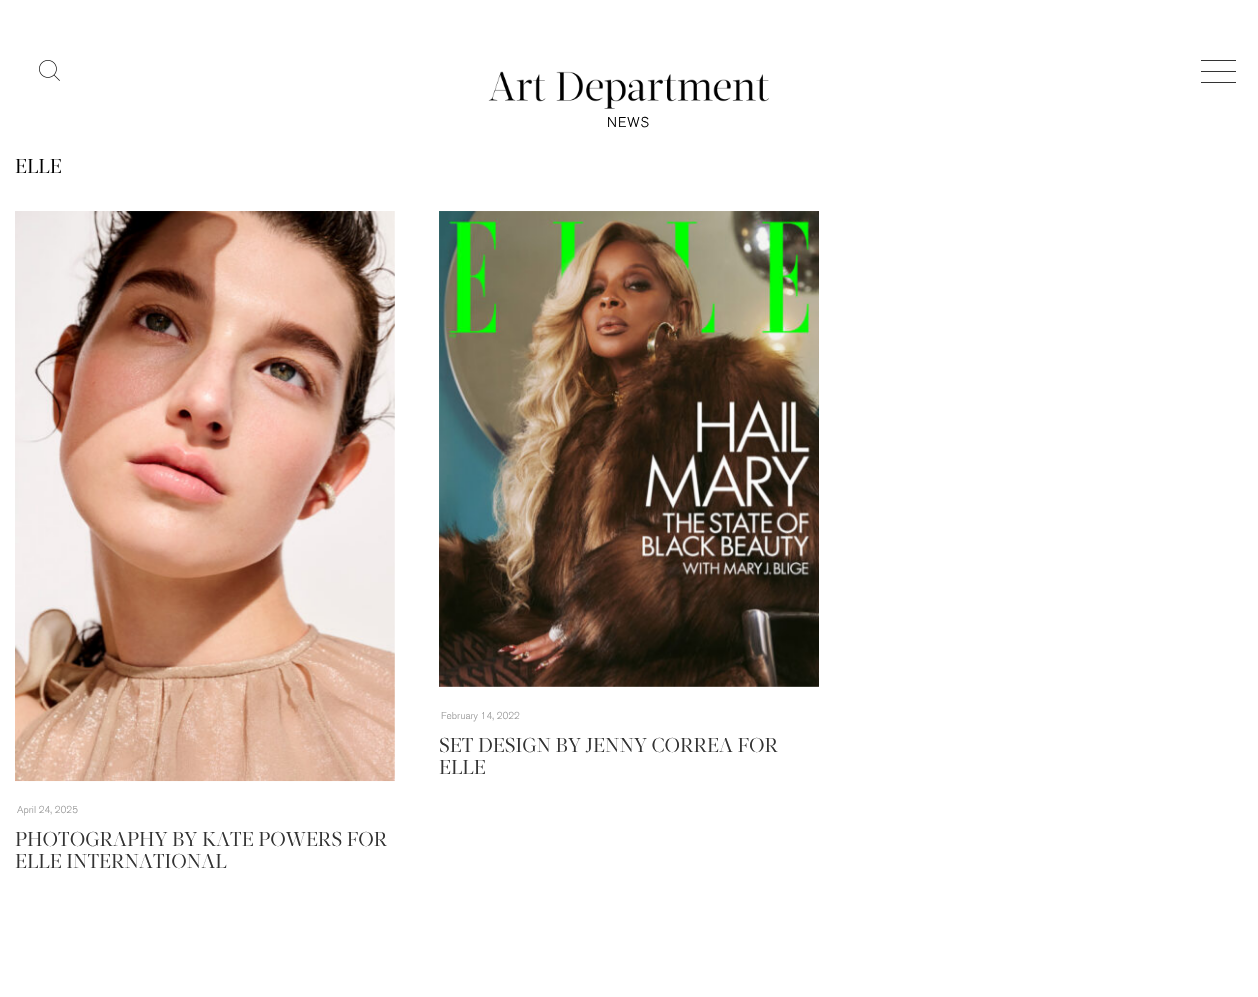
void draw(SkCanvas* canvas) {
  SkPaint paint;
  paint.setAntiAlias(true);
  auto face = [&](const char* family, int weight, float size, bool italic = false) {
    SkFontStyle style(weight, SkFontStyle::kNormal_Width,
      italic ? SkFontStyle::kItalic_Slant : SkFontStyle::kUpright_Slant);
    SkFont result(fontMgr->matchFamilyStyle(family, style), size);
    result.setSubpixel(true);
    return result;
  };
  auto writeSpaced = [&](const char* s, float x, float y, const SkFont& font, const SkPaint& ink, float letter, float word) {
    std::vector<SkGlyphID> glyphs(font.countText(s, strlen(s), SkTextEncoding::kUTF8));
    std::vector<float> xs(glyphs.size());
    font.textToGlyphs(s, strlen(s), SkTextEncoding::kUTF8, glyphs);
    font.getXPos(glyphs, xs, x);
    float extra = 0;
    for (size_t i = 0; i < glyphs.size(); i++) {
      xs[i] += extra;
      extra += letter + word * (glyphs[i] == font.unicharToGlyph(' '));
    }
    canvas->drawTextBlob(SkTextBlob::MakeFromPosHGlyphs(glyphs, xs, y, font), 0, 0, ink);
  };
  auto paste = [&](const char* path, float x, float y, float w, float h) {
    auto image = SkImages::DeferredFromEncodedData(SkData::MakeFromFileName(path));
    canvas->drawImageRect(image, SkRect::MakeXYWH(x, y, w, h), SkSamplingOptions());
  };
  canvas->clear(0xffffffff);
  paste("img/1.png", 39, 60, 21, 21);
  {
    const struct { float x, y, w, h; SkColor color; } items[] = {
      {1201, 60, 35, 1, 0xff333333},
      {1201, 71, 35, 1, 0xff333333},
      {1201, 82, 35, 1, 0xff333333},
    };
    for (auto [x, y, w, h, color] : items) {
      paint.setColor(color);
      canvas->drawRect(SkRect::MakeXYWH(x, y, w, h), paint);
    }
  }
  paste("img/2.png", 488, 71, 281, 38);
  paste("img/3.png", 439, 211, 380, 476);
  paste("img/4.png", 15, 211, 380, 571);
  auto f0 = face("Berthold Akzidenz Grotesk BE", 300, 14);
  paint.setColor(0xff000000);
  writeSpaced("NEWS", 607, 127, f0, paint, 1, 0);
  auto f1 = face("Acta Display", 400, 20);
  canvas->drawString("ELLE", 15, 173, f1, paint);
  auto f2 = face("Berthold Akzidenz Grotesk BE", 300, 10);
  paint.setColor(0xff999999);
  canvas->drawString("February 14, 2022", 441, 719, f2, paint);
  paint.setColor(0xff333333);
  canvas->drawString("SET DESIGN BY JENNY CORREA FOR", 439, 752, f1, paint);
  canvas->drawString("ELLE", 439, 774, f1, paint);
  paint.setColor(0xff999999);
  canvas->drawString("April 24, 2025", 17, 813, f2, paint);
  paint.setColor(0xff333333);
  canvas->drawString("PHOTOGRAPHY BY KATE POWERS FOR", 15, 846, f1, paint);
  canvas->drawString("ELLE INTERNATIONAL", 15, 868, f1, paint);
}
